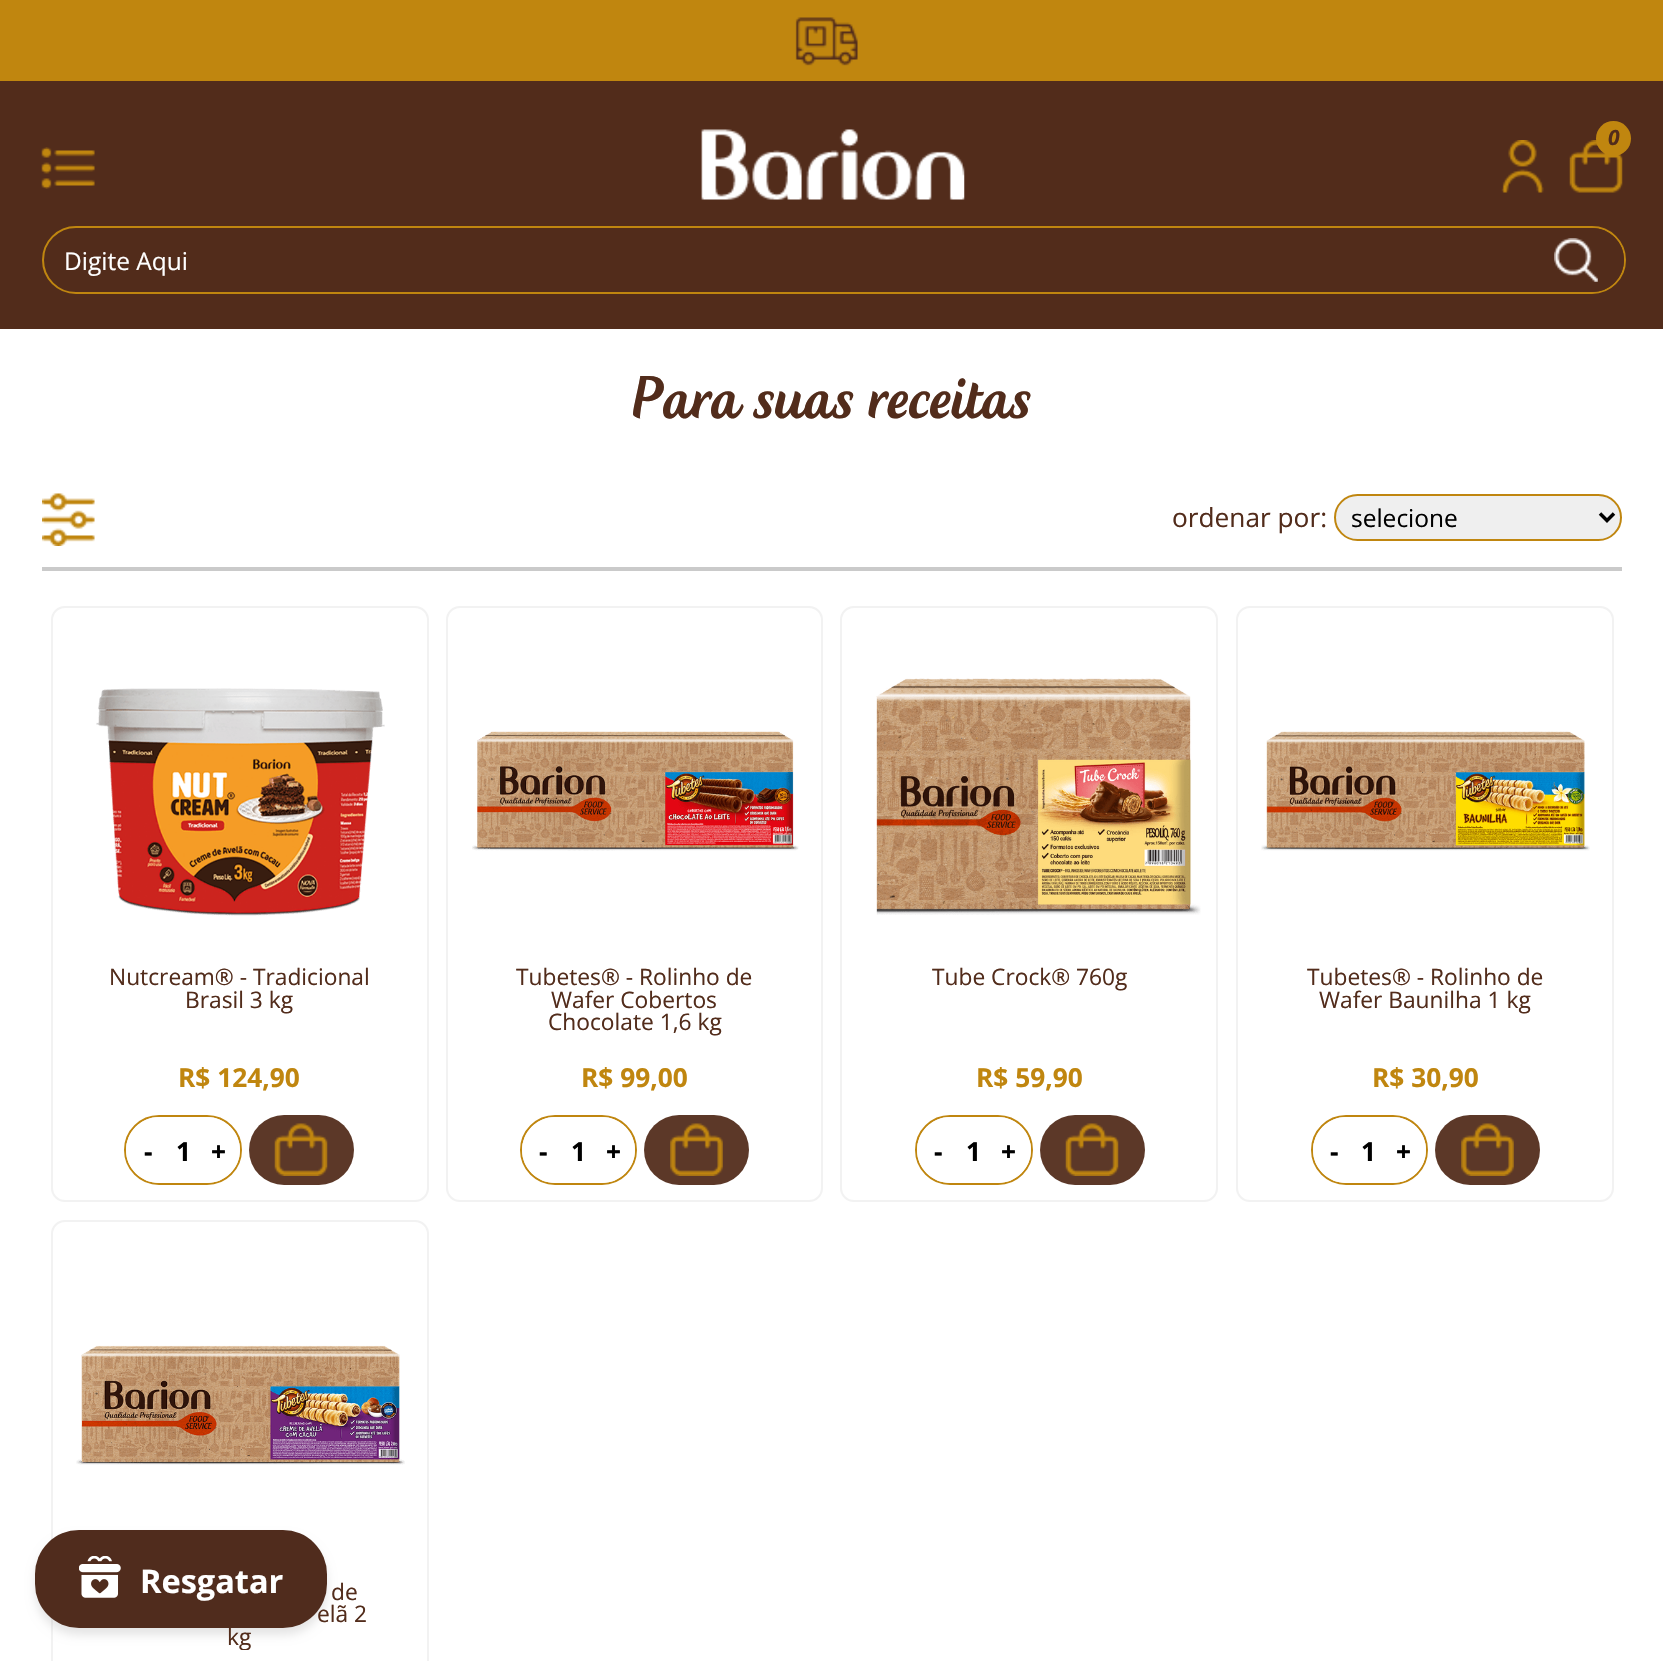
void draw(SkCanvas* canvas) {
  SkPaint paint;
  paint.setAntiAlias(true);
  auto face = [&](const char* family, int weight, float size, bool italic = false) {
    SkFontStyle style(weight, SkFontStyle::kNormal_Width,
      italic ? SkFontStyle::kItalic_Slant : SkFontStyle::kUpright_Slant);
    SkFont result(fontMgr->matchFamilyStyle(family, style), size);
    result.setSubpixel(true);
    return result;
  };
  auto paste = [&](const char* path, float x, float y, float w, float h) {
    auto image = SkImages::DeferredFromEncodedData(SkData::MakeFromFileName(path));
    canvas->drawImageRect(image, SkRect::MakeXYWH(x, y, w, h), SkSamplingOptions());
  };
  auto shape = [&](const char* data, bool evenOdd = false) {
    SkPath result = *SkParsePath::FromSVGString(data);
    if (evenOdd) result.setFillType(SkPathFillType::kEvenOdd);
    return result;
  };
  canvas->clear(0xffffffff);
  paint.setColor(0xffc0860f);
  canvas->drawRect(SkRect::MakeXYWH(0, 0, 1663, 81), paint);
  paste("img/1.png", 795, 17, 63, 49);
  paint.setColor(0xff522c1b);
  canvas->drawRect(SkRect::MakeXYWH(0, 81, 1663, 248), paint);
  paste("img/2.png", 701, 129, 264, 71);
  paste("img/3.png", 1569, 140, 54, 53);
  paint.setColor(0xffc0860f);
  canvas->drawCircle(1613.5f, 138.5f, 17.5f, paint);
  paste("img/4.png", 1501, 140, 43, 53);
  paste("img/5.png", 41, 147, 54, 42);
  paint.setStroke(true);
  paint.setStrokeWidth(2);
  canvas->drawRoundRect(SkRect::MakeXYWH(43, 227, 1582, 66), 33, 33, paint);
  paint.setStroke(false);
  paint.setColor(0xff522c1b);
  canvas->drawPath(shape("M1528 228H1592C1609.5 228 1624 242.5 1624 260C1624 277.5 1609.5 292 1592 292H1528Z"), paint);
  paste("img/6.png", 1554, 238, 44, 44);
  paste("img/7.png", 42, 493, 53, 53);
  paint.setColor(0xffcacaca);
  canvas->drawRect(SkRect::MakeXYWH(42, 567, 1580, 4), paint);
  paint.setColor(0xffefefef);
  canvas->drawRoundRect(SkRect::MakeXYWH(1335, 495, 286, 45), 22.5f, 22.5f, paint);
  paint.setStroke(true);
  paint.setColor(0xffc0860f);
  canvas->drawRoundRect(SkRect::MakeXYWH(1335, 495, 286, 45), 22.5f, 22.5f, paint);
  paint.setStrokeWidth(3.5f);
  paint.setColor(0xff000000);
  canvas->drawPath(shape("M1600 513.5L1607 520.5L1614 513.5"), paint);
  paint.setStrokeWidth(2);
  paint.setColor(0xfff2f2f2);
  canvas->drawRoundRect(SkRect::MakeXYWH(52, 607, 376, 594), 13, 13, paint);
  paste("img/8.png", 96, 688, 289, 228);
  paint.setColor(0xffc0860f);
  canvas->drawRoundRect(SkRect::MakeXYWH(125, 1116, 116, 68), 34, 34, paint);
  paint.setStroke(false);
  paint.setColor(0xffffffff);
  canvas->drawPath(shape("M159 1117H170V1183H159C141 1183 126 1168 126 1150C126 1132 141 1117 159 1117Z"), paint);
  canvas->drawPath(shape("M196 1117H207C225 1117 240 1132 240 1150C240 1168 225 1183 207 1183H196Z"), paint);
  paint.setColor(0xff5c3828);
  canvas->drawRoundRect(SkRect::MakeXYWH(249, 1115, 105, 70), 35, 35, paint);
  paste("img/9.png", 274, 1123, 54, 53);
  paint.setStroke(true);
  paint.setColor(0xfff2f2f2);
  canvas->drawRoundRect(SkRect::MakeXYWH(447, 607, 375, 594), 13, 13, paint);
  paste("img/10.png", 472, 731, 327, 120);
  paint.setColor(0xffc0860f);
  canvas->drawRoundRect(SkRect::MakeXYWH(521, 1116, 115, 68), 34, 34, paint);
  paint.setStroke(false);
  paint.setColor(0xffffffff);
  canvas->drawPath(shape("M555 1117H565V1183H555C537 1183 522 1168 522 1150C522 1132 537 1117 555 1117Z"), paint);
  canvas->drawPath(shape("M592 1117H602C620 1117 635 1132 635 1150C635 1168 620 1183 602 1183H592Z"), paint);
  paint.setColor(0xff5c3828);
  canvas->drawRoundRect(SkRect::MakeXYWH(644, 1115, 105, 70), 35, 35, paint);
  paste("img/11.png", 670, 1123, 53, 53);
  paint.setStroke(true);
  paint.setColor(0xfff2f2f2);
  canvas->drawRoundRect(SkRect::MakeXYWH(841, 607, 376, 594), 13, 13, paint);
  paste("img/12.png", 876, 678, 325, 237);
  paint.setColor(0xffc0860f);
  canvas->drawRoundRect(SkRect::MakeXYWH(916, 1116, 116, 68), 34, 34, paint);
  paint.setStroke(false);
  paint.setColor(0xffffffff);
  canvas->drawPath(shape("M950 1117H961V1183H950C932 1183 917 1168 917 1150C917 1132 932 1117 950 1117Z"), paint);
  canvas->drawPath(shape("M987 1117H998C1016 1117 1031 1132 1031 1150C1031 1168 1016 1183 998 1183H987Z"), paint);
  paint.setColor(0xff5c3828);
  canvas->drawRoundRect(SkRect::MakeXYWH(1040, 1115, 105, 70), 35, 35, paint);
  paste("img/13.png", 1065, 1123, 54, 53);
  paint.setStroke(true);
  paint.setColor(0xfff2f2f2);
  canvas->drawRoundRect(SkRect::MakeXYWH(1237, 607, 376, 594), 13, 13, paint);
  paste("img/14.png", 1261, 731, 329, 120);
  paint.setColor(0xffc0860f);
  canvas->drawRoundRect(SkRect::MakeXYWH(1312, 1116, 115, 68), 34, 34, paint);
  paint.setStroke(false);
  paint.setColor(0xffffffff);
  canvas->drawPath(shape("M1346 1117H1356V1183H1346C1328 1183 1313 1168 1313 1150C1313 1132 1328 1117 1346 1117Z"), paint);
  canvas->drawPath(shape("M1383 1117H1393C1411 1117 1426 1132 1426 1150C1426 1168 1411 1183 1393 1183H1383Z"), paint);
  paint.setColor(0xff5c3828);
  canvas->drawRoundRect(SkRect::MakeXYWH(1435, 1115, 105, 70), 35, 35, paint);
  paste("img/11.png", 1461, 1123, 53, 53);
  paint.setStroke(true);
  paint.setColor(0xfff2f2f2);
  canvas->drawRoundRect(SkRect::MakeXYWH(52, 1221, 376, 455), 13, 13, paint);
  paste("img/15.png", 76, 1345, 329, 120);
  paint.setStroke(false);
  paint.setColor(0x1a000000);
  paint.setMaskFilter(SkMaskFilter::MakeBlur(kNormal_SkBlurStyle, 5));
  canvas->drawRoundRect(SkRect::MakeXYWH(35, 1537, 292, 98), 44, 44, paint);
  paint.setMaskFilter(nullptr);
  auto f0 = face("Open Sans", 700, 21, true);
  paint.setColor(0xff522c1b);
  canvas->drawString("0", 1608, 145, f0, paint);
  auto f1 = face("Open Sans", 400, 24.5f);
  paint.setColor(0xffffffff);
  canvas->drawString("Digite Aqui", 64, 270, f1, paint);
  auto f2 = face("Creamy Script", 400, 78.75f);
  paint.setColor(0xff522c1b);
  canvas->drawString("Para suas receitas", 633, 418, f2, paint);
  auto f3 = face("Open Sans", 400, 26.25f);
  canvas->drawString("ordenar por:", 1172, 527, f3, paint);
  paint.setColor(0xff000000);
  canvas->drawString("selecione", 1351, 527, f1, paint);
  auto f4 = face("Open Sans", 400, 22.75f);
  paint.setColor(0xff522c1b);
  canvas->drawString("Nutcream® - Tradicional", 109, 985, f4, paint);
  canvas->drawString("Brasil 3 kg", 185, 1008, f4, paint);
  auto f5 = face("Open Sans", 700, 26.25f);
  paint.setColor(0xffc0860f);
  canvas->drawString("R$ 124,90", 178, 1087, f5, paint);
  paint.setColor(0xff000000);
  {
    const struct { const char* s; float x, y; } items[] = {
      {"-", 144, 1161},
      {"1", 176, 1161},
      {"+", 211, 1161},
    };
    for (auto [s, x, y] : items) {
      canvas->drawString(s, x, y, f5, paint);
    }
  }
  paint.setColor(0xff522c1b);
  {
    const struct { const char* s; float x, y; } items[] = {
      {"Tubetes® - Rolinho de", 516, 985},
      {"Wafer Cobertos", 551, 1008},
      {"Chocolate 1,6 kg", 548, 1030},
    };
    for (auto [s, x, y] : items) {
      canvas->drawString(s, x, y, f4, paint);
    }
  }
  paint.setColor(0xffc0860f);
  canvas->drawString("R$ 99,00", 581, 1087, f5, paint);
  paint.setColor(0xff000000);
  {
    const struct { const char* s; float x, y; } items[] = {
      {"-", 539, 1161},
      {"1", 571, 1161},
      {"+", 606, 1161},
    };
    for (auto [s, x, y] : items) {
      canvas->drawString(s, x, y, f5, paint);
    }
  }
  paint.setColor(0xff522c1b);
  canvas->drawString("Tube Crock® 760g", 932, 985, f4, paint);
  paint.setColor(0xffc0860f);
  canvas->drawString("R$ 59,90", 976, 1087, f5, paint);
  paint.setColor(0xff000000);
  {
    const struct { const char* s; float x, y; } items[] = {
      {"-", 934, 1161},
      {"1", 966, 1161},
      {"+", 1001, 1161},
    };
    for (auto [s, x, y] : items) {
      canvas->drawString(s, x, y, f5, paint);
    }
  }
  paint.setColor(0xff522c1b);
  canvas->drawString("Tubetes® - Rolinho de", 1307, 985, f4, paint);
  canvas->drawString("Wafer Baunilha 1 kg", 1319, 1008, f4, paint);
  paint.setColor(0xffc0860f);
  canvas->drawString("R$ 30,90", 1372, 1087, f5, paint);
  paint.setColor(0xff000000);
  {
    const struct { const char* s; float x, y; } items[] = {
      {"-", 1330, 1161},
      {"1", 1361, 1161},
      {"+", 1396, 1161},
    };
    for (auto [s, x, y] : items) {
      canvas->drawString(s, x, y, f5, paint);
    }
  }
  paint.setColor(0xff522c1b);
  canvas->drawString("de", 331, 1600, f4, paint);
  canvas->drawString("elã 2", 317, 1622, f4, paint);
  canvas->save();
  canvas->clipRect(SkRect::MakeXYWH(102, 1580, 274, 70));
  canvas->drawString("kg", 227, 1645, f4, paint);
  canvas->restore();
  paint.setColor(0xff502c1d);
  canvas->drawRoundRect(SkRect::MakeXYWH(35, 1530, 292, 98), 44, 44, paint);
  paste("img/16.png", 79, 1556, 42, 42);
  auto f6 = face("Open Sans", 700, 32.5f);
  paint.setColor(0xffffffff);
  canvas->drawString("Resgatar", 140, 1593, f6, paint);
}
